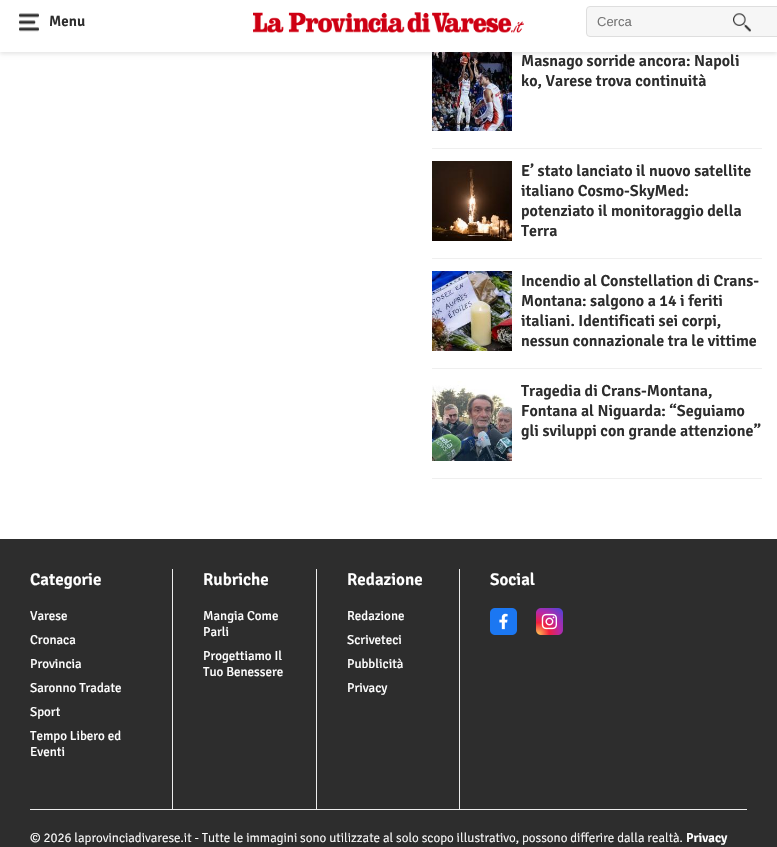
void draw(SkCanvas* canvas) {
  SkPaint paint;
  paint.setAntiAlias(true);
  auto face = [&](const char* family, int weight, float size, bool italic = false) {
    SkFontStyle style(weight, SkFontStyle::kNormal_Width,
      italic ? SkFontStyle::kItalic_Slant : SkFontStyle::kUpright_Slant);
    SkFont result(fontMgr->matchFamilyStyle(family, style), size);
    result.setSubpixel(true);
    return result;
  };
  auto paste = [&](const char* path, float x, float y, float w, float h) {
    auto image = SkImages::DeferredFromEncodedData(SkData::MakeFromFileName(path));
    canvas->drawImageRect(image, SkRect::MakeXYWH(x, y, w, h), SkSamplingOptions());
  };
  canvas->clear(0xffffffff);
  paste("img/4.png", 432, 52, 80, 79);
  paint.setColor(0x1a000000);
  paint.setMaskFilter(SkMaskFilter::MakeBlur(kNormal_SkBlurStyle, 2));
  canvas->drawRect(SkRect::MakeXYWH(0, -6, 777, 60), paint);
  paint.setMaskFilter(nullptr);
  paint.setColor(0xffffffff);
  canvas->drawRect(SkRect::MakeXYWH(0, 0, 777, 52), paint);
  paste("img/1.png", 19, 13, 20, 19);
  paste("img/2.png", 253, 12, 271, 21);
  paint.setColor(0xfff6f6f6);
  canvas->drawRoundRect(SkRect::MakeXYWH(586.5f, 6.5f, 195, 30), 3.5f, 3.5f, paint);
  paint.setStroke(true);
  paint.setStrokeWidth(1);
  paint.setColor(0xffdedede);
  canvas->drawRoundRect(SkRect::MakeXYWH(586.5f, 6.5f, 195, 30), 3.5f, 3.5f, paint);
  paste("img/3.png", 733, 13, 18, 19);
  paint.setStroke(false);
  paint.setColor(0xffefefef);
  canvas->drawRect(SkRect::MakeXYWH(432, 148, 330, 1), paint);
  canvas->drawRect(SkRect::MakeXYWH(432, 258, 330, 1), paint);
  paste("img/5.png", 432, 161, 80, 80);
  canvas->drawRect(SkRect::MakeXYWH(432, 368, 330, 1), paint);
  paste("img/6.png", 432, 271, 80, 80);
  canvas->drawRect(SkRect::MakeXYWH(432, 478, 330, 1), paint);
  paste("img/7.png", 432, 381, 80, 80);
  {
    const struct { float x, y, w, h; SkColor color; } items[] = {
      {0, 539, 777, 308, 0xff2d2d2d},
      {172, 569, 1, 240, 0xffececec},
      {316, 569, 1, 240, 0xffececec},
      {459, 569, 1, 240, 0xffececec},
    };
    for (auto [x, y, w, h, color] : items) {
      paint.setColor(color);
      canvas->drawRect(SkRect::MakeXYWH(x, y, w, h), paint);
    }
  }
  paste("img/8.png", 490, 608, 27, 27);
  paste("img/9.png", 536, 608, 27, 27);
  canvas->drawRect(SkRect::MakeXYWH(30, 809, 717, 1), paint);
  auto f0 = face("Signika", 600, 15);
  paint.setColor(0xff2d2d2d);
  canvas->drawString("Menu", 49, 26, f0, paint);
  auto f1 = face("Liberation Sans", 400, 13);
  paint.setColor(0xff757575);
  canvas->drawString("Cerca", 597, 26, f1, paint);
  auto f2 = face("Signika", 600, 16);
  paint.setColor(0xff2d2d2d);
  {
    const struct { const char* s; float x, y; } items[] = {
      {"Masnago sorride ancora: Napoli", 521, 66},
      {"ko, Varese trova continuità", 521, 86},
      {"E’ stato lanciato il nuovo satellite", 521, 176},
      {"italiano Cosmo-SkyMed:", 521, 196},
      {"potenziato il monitoraggio della", 521, 216},
      {"Terra", 521, 236},
      {"Incendio al Constellation di Crans-", 521, 286},
      {"Montana: salgono a 14 i feriti", 521, 306},
      {"italiani. Identificati sei corpi,", 521, 326},
      {"nessun connazionale tra le vittime", 521, 346},
      {"Tragedia di Crans-Montana,", 521, 396},
      {"Fontana al Niguarda: “Seguiamo", 521, 416},
      {"gli sviluppi con grande attenzione”", 521, 436},
    };
    for (auto [s, x, y] : items) {
      canvas->drawString(s, x, y, f2, paint);
    }
  }
  auto f3 = face("Signika", 600, 17);
  paint.setColor(0xffffffff);
  canvas->drawString("Categorie", 30, 585, f3, paint);
  auto f4 = face("Signika", 400, 13);
  {
    const struct { const char* s; float x, y; } items[] = {
      {"Varese", 30, 620},
      {"Cronaca", 30, 644},
      {"Provincia", 30, 668},
      {"Saronno Tradate", 30, 692},
      {"Sport", 30, 716},
      {"Tempo Libero ed", 30, 740},
      {"Eventi", 30, 756},
    };
    for (auto [s, x, y] : items) {
      canvas->drawString(s, x, y, f4, paint);
    }
  }
  canvas->drawString("Rubriche", 203, 585, f3, paint);
  {
    const struct { const char* s; float x, y; } items[] = {
      {"Mangia Come", 203, 620},
      {"Parli", 203, 636},
      {"Progettiamo Il", 203, 660},
      {"Tuo Benessere", 203, 676},
    };
    for (auto [s, x, y] : items) {
      canvas->drawString(s, x, y, f4, paint);
    }
  }
  canvas->drawString("Redazione", 347, 585, f3, paint);
  {
    const struct { const char* s; float x, y; } items[] = {
      {"Redazione", 347, 620},
      {"Scriveteci", 347, 644},
      {"Pubblicità", 347, 668},
      {"Privacy", 347, 692},
    };
    for (auto [s, x, y] : items) {
      canvas->drawString(s, x, y, f4, paint);
    }
  }
  canvas->drawString("Social", 490, 585, f3, paint);
  auto f5 = face("Signika", 300, 13);
  canvas->drawString("© 2026 laprovinciadivarese.it - Tutte le immagini sono utilizzate al solo scopo illustrativo, possono differire dalla realtà.", 30, 842, f5, paint);
  auto f6 = face("Signika", 600, 13);
  canvas->drawString("Privacy", 686, 842, f6, paint);
}
